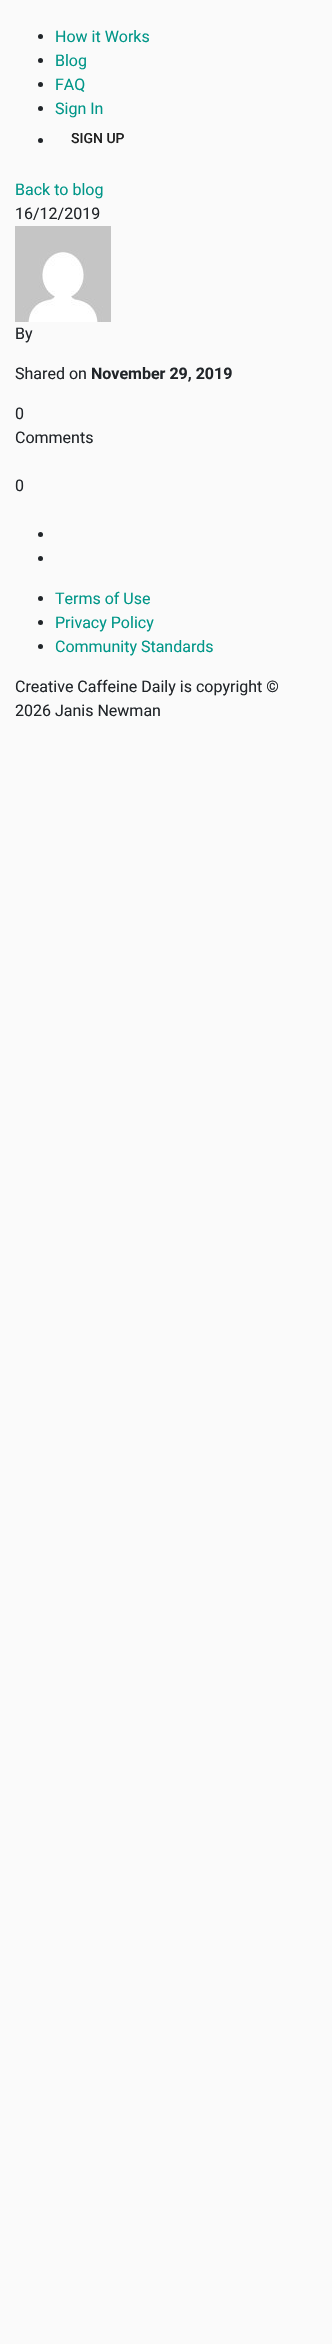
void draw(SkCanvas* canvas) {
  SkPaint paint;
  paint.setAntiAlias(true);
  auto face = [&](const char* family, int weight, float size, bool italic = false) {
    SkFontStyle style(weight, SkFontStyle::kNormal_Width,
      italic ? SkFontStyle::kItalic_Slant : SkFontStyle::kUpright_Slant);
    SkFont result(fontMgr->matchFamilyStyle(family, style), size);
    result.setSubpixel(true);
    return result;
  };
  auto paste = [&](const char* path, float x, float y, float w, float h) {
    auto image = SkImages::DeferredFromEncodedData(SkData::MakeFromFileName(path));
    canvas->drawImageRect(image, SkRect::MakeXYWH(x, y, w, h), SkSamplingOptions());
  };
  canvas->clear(0xfffafafa);
  paint.setColor(0xff212529);
  canvas->drawCircle(40.5f, 36.5f, 2.5f, paint);
  canvas->drawCircle(40.5f, 60.5f, 2.5f, paint);
  canvas->drawCircle(40.5f, 84.5f, 2.5f, paint);
  canvas->drawCircle(40.5f, 108.5f, 2.5f, paint);
  canvas->drawCircle(40.5f, 140.5f, 2.5f, paint);
  paste("img/1.png", 15, 226, 96, 96);
  canvas->drawCircle(40.5f, 534.5f, 2.5f, paint);
  canvas->drawCircle(40.5f, 558.5f, 2.5f, paint);
  canvas->drawCircle(40.5f, 598.5f, 2.5f, paint);
  canvas->drawCircle(40.5f, 622.5f, 2.5f, paint);
  canvas->drawCircle(40.5f, 646.5f, 2.5f, paint);
  auto f0 = face("Roboto", 400, 16);
  paint.setColor(0xff009688);
  {
    const struct { const char* s; float x, y; } items[] = {
      {"How it Works", 55, 42},
      {"Blog", 55, 66},
      {"FAQ", 55, 90},
      {"Sign In", 55, 114},
    };
    for (auto [s, x, y] : items) {
      canvas->drawString(s, x, y, f0, paint);
    }
  }
  auto f1 = face("Roboto", 500, 14);
  paint.setColor(0xff212121);
  canvas->drawString("SIGN UP", 71, 143, f1, paint);
  paint.setColor(0xff009688);
  canvas->drawString("Back to blog", 15, 195, f0, paint);
  paint.setColor(0xff212529);
  {
    const struct { const char* s; float x, y; } items[] = {
      {"16/12/2019", 15, 219},
      {"By", 15, 339},
      {"Shared on", 15, 379},
    };
    for (auto [s, x, y] : items) {
      canvas->drawString(s, x, y, f0, paint);
    }
  }
  auto f2 = face("Roboto", 700, 16);
  canvas->drawString("November 29, 2019", 91, 379, f2, paint);
  {
    const struct { const char* s; float x, y; } items[] = {
      {"0", 15, 419},
      {"Comments", 15, 443},
      {"0", 15, 491},
    };
    for (auto [s, x, y] : items) {
      canvas->drawString(s, x, y, f0, paint);
    }
  }
  paint.setColor(0xff009688);
  {
    const struct { const char* s; float x, y; } items[] = {
      {"Terms of Use", 55, 604},
      {"Privacy Policy", 55, 628},
      {"Community Standards", 55, 652},
    };
    for (auto [s, x, y] : items) {
      canvas->drawString(s, x, y, f0, paint);
    }
  }
  paint.setColor(0xff212529);
  canvas->drawString("Creative Caffeine Daily is copyright ©", 15, 692, f0, paint);
  canvas->drawString("2026 Janis Newman", 15, 716, f0, paint);
}
